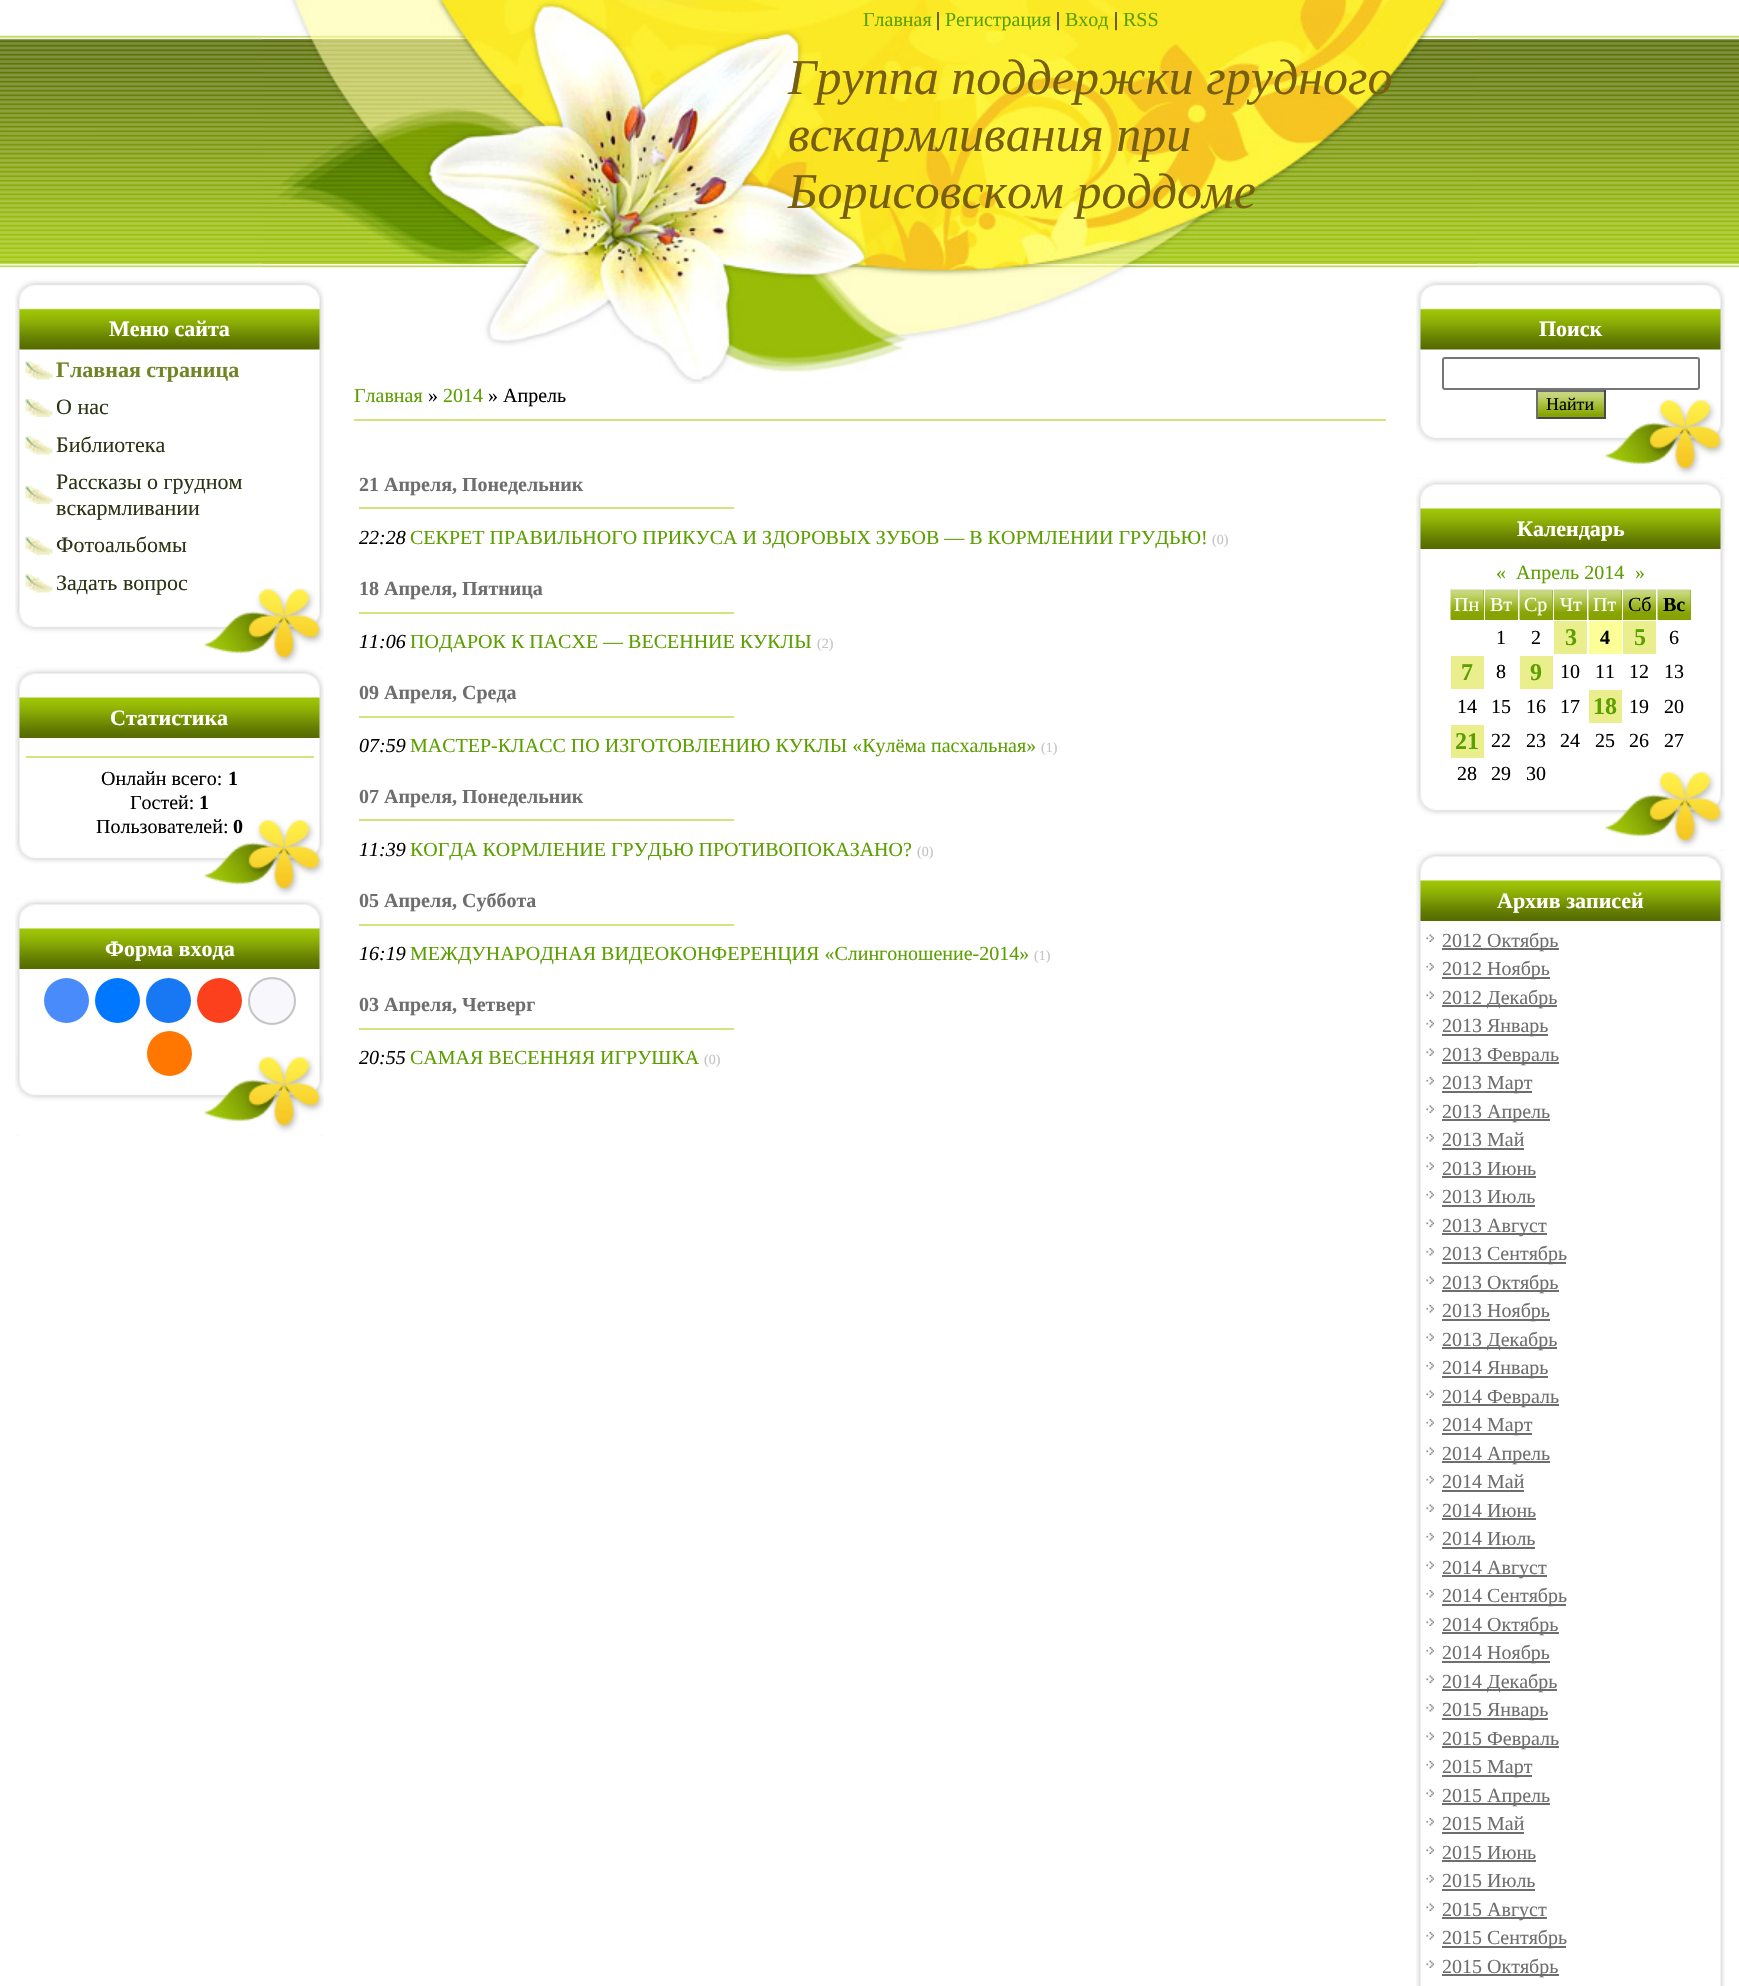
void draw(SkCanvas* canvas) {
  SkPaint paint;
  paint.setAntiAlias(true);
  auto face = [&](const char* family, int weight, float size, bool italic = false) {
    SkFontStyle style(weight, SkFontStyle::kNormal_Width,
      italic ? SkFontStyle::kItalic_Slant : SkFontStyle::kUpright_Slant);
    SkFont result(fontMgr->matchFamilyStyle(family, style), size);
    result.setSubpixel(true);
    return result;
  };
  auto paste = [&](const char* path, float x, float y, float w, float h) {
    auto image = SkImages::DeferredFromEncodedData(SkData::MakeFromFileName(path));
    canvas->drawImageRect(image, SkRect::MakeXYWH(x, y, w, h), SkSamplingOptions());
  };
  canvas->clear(0xffffffff);
  paste("img/1.png", 0, 35, 1739, 233);
  paste("img/2.png", 262, 0, 1216, 39);
  paste("img/3.png", 262, 39, 1216, 225);
  paste("img/4.png", 262, 264, 1216, 120);
  paste("img/5.png", 15, 349, 309, 319);
  paste("img/6.png", 15, 279, 309, 71);
  paste("img/7.png", 15, 588, 309, 80);
  paste("img/8.png", 25, 361, 28, 19);
  paste("img/9.png", 25, 399, 28, 18);
  paste("img/8.png", 25, 436, 28, 19);
  paste("img/9.png", 25, 486, 28, 18);
  paste("img/9.png", 25, 537, 28, 18);
  paste("img/8.png", 25, 574, 28, 19);
  paste("img/10.png", 15, 667, 309, 232);
  paste("img/11.png", 15, 667, 309, 71);
  paste("img/7.png", 15, 819, 309, 80);
  paint.setColor(0xffd6e37d);
  canvas->drawRect(SkRect::MakeXYWH(26, 756, 288, 2), paint);
  paste("img/12.png", 15, 898, 309, 238);
  paste("img/11.png", 15, 898, 309, 71);
  paste("img/7.png", 15, 1056, 309, 80);
  paint.setColor(0xff498bfa);
  canvas->drawCircle(66.5f, 1000.5f, 22.5f, paint);
  paint.setColor(0xff0077ff);
  canvas->drawCircle(117.5f, 1000.5f, 22.5f, paint);
  paint.setColor(0xff1877f2);
  canvas->drawCircle(168.5f, 1000.5f, 22.5f, paint);
  paint.setColor(0xfffc3f1d);
  canvas->drawCircle(219.5f, 1000.5f, 22.5f, paint);
  paint.setColor(0xfff8f8fc);
  canvas->drawCircle(272, 1001, 23, paint);
  paint.setStroke(true);
  paint.setStrokeWidth(2);
  paint.setColor(0xffc4c4c4);
  canvas->drawCircle(272, 1001, 23, paint);
  paint.setStroke(false);
  paint.setColor(0xffff7700);
  canvas->drawCircle(169.5f, 1053.5f, 22.5f, paint);
  {
    const struct { float x, y, w, h; SkColor color; } items[] = {
      {354, 419, 1032, 2, 0xffd6e37d},
      {359, 507, 375, 2, 0xffd6e37d},
      {359, 612, 375, 2, 0xffd6e37d},
      {359, 716, 375, 2, 0xffd6e37d},
      {359, 819, 375, 2, 0xffd6e37d},
      {359, 924, 375, 2, 0xffd6e37d},
      {359, 1028, 375, 2, 0xffd6e37d},
    };
    for (auto [x, y, w, h, color] : items) {
      paint.setColor(color);
      canvas->drawRect(SkRect::MakeXYWH(x, y, w, h), paint);
    }
  }
  paste("img/13.png", 1416, 349, 309, 130);
  paste("img/14.png", 1416, 279, 309, 71);
  paste("img/7.png", 1416, 399, 309, 80);
  paint.setStroke(true);
  paint.setColor(0xff767676);
  canvas->drawRoundRect(SkRect::MakeXYWH(1443, 358, 256, 31), 2, 2, paint);
  paint.setStroke(false);
  paint.setColor(0xff87a303);
  canvas->drawRect(SkRect::MakeXYWH(1538, 414, 66, 3), paint);
  paste("img/15.png", 1538, 392, 66, 22);
  {
    const struct { float x, y, w, h; SkColor color; } items[] = {
      {1536, 390, 69, 2, 0xff6e6e6e},
      {1604, 390, 2, 29, 0xff494949},
      {1536, 417, 69, 2, 0xff494949},
      {1536, 390, 2, 29, 0xff6e6e6e},
    };
    for (auto [x, y, w, h, color] : items) {
      paint.setColor(color);
      canvas->drawRect(SkRect::MakeXYWH(x, y, w, h), paint);
    }
  }
  paste("img/16.png", 1416, 478, 309, 373);
  paste("img/11.png", 1416, 478, 309, 71);
  paste("img/7.png", 1416, 771, 309, 80);
  paint.setColor(0xff87a303);
  canvas->drawRect(SkRect::MakeXYWH(1451, 590, 33, 30), paint);
  paste("img/17.png", 1450, 589, 34, 31);
  canvas->drawRect(SkRect::MakeXYWH(1485, 612, 33, 8), paint);
  paste("img/18.png", 1485, 589, 33, 23);
  canvas->drawRect(SkRect::MakeXYWH(1520, 590, 33, 30), paint);
  paste("img/19.png", 1519, 589, 34, 31);
  canvas->drawRect(SkRect::MakeXYWH(1554, 612, 33, 8), paint);
  paste("img/20.png", 1554, 589, 33, 23);
  canvas->drawRect(SkRect::MakeXYWH(1589, 590, 33, 30), paint);
  paste("img/21.png", 1588, 589, 34, 31);
  canvas->drawRect(SkRect::MakeXYWH(1623, 612, 33, 8), paint);
  paste("img/22.png", 1623, 589, 33, 23);
  canvas->drawRect(SkRect::MakeXYWH(1658, 590, 33, 30), paint);
  paste("img/23.png", 1657, 589, 34, 31);
  {
    const struct { float x, y, w, h; SkColor color; } items[] = {
      {1554, 621, 33, 33, 0xffebee8d},
      {1589, 621, 33, 33, 0xfffcff97},
      {1623, 621, 33, 33, 0xffebee8d},
      {1451, 656, 33, 33, 0xffebee8d},
      {1520, 656, 33, 33, 0xffebee8d},
      {1589, 690, 33, 33, 0xffebee8d},
      {1451, 725, 33, 33, 0xffebee8d},
    };
    for (auto [x, y, w, h, color] : items) {
      paint.setColor(color);
      canvas->drawRect(SkRect::MakeXYWH(x, y, w, h), paint);
    }
  }
  paste("img/24.png", 1416, 850, 309, 1136);
  paste("img/11.png", 1416, 850, 309, 71);
  paste("img/25.png", 1426, 934, 8, 8);
  paint.setColor(0xff6e6e6e);
  canvas->drawRect(SkRect::MakeXYWH(1442, 948, 117, 2), paint);
  paste("img/26.png", 1426, 963, 8, 8);
  canvas->drawRect(SkRect::MakeXYWH(1442, 977, 108, 2), paint);
  paste("img/25.png", 1426, 991, 8, 8);
  canvas->drawRect(SkRect::MakeXYWH(1442, 1005, 115, 2), paint);
  paste("img/26.png", 1426, 1020, 8, 8);
  canvas->drawRect(SkRect::MakeXYWH(1442, 1034, 106, 2), paint);
  paste("img/25.png", 1426, 1048, 8, 8);
  canvas->drawRect(SkRect::MakeXYWH(1442, 1062, 117, 2), paint);
  paste("img/26.png", 1426, 1077, 8, 8);
  canvas->drawRect(SkRect::MakeXYWH(1442, 1091, 90, 2), paint);
  paste("img/25.png", 1426, 1105, 8, 8);
  canvas->drawRect(SkRect::MakeXYWH(1442, 1119, 108, 2), paint);
  paste("img/26.png", 1426, 1134, 8, 8);
  canvas->drawRect(SkRect::MakeXYWH(1442, 1148, 82, 2), paint);
  paste("img/25.png", 1426, 1162, 8, 8);
  canvas->drawRect(SkRect::MakeXYWH(1442, 1176, 94, 2), paint);
  paste("img/26.png", 1426, 1191, 8, 8);
  canvas->drawRect(SkRect::MakeXYWH(1442, 1205, 93, 2), paint);
  paste("img/25.png", 1426, 1219, 8, 8);
  canvas->drawRect(SkRect::MakeXYWH(1442, 1233, 105, 2), paint);
  paste("img/26.png", 1426, 1248, 8, 8);
  canvas->drawRect(SkRect::MakeXYWH(1442, 1262, 124, 2), paint);
  paste("img/25.png", 1426, 1276, 8, 8);
  canvas->drawRect(SkRect::MakeXYWH(1442, 1290, 117, 2), paint);
  paste("img/26.png", 1426, 1305, 8, 8);
  canvas->drawRect(SkRect::MakeXYWH(1442, 1319, 108, 2), paint);
  paste("img/25.png", 1426, 1333, 8, 8);
  canvas->drawRect(SkRect::MakeXYWH(1442, 1347, 115, 2), paint);
  paste("img/26.png", 1426, 1362, 8, 8);
  canvas->drawRect(SkRect::MakeXYWH(1442, 1376, 106, 2), paint);
  paste("img/25.png", 1426, 1390, 8, 8);
  canvas->drawRect(SkRect::MakeXYWH(1442, 1404, 117, 2), paint);
  paste("img/26.png", 1426, 1419, 8, 8);
  canvas->drawRect(SkRect::MakeXYWH(1442, 1433, 90, 2), paint);
  paste("img/25.png", 1426, 1447, 8, 8);
  canvas->drawRect(SkRect::MakeXYWH(1442, 1461, 108, 2), paint);
  paste("img/26.png", 1426, 1476, 8, 8);
  canvas->drawRect(SkRect::MakeXYWH(1442, 1490, 82, 2), paint);
  paste("img/25.png", 1426, 1504, 8, 8);
  canvas->drawRect(SkRect::MakeXYWH(1442, 1518, 94, 2), paint);
  paste("img/26.png", 1426, 1533, 8, 8);
  canvas->drawRect(SkRect::MakeXYWH(1442, 1547, 93, 2), paint);
  paste("img/25.png", 1426, 1561, 8, 8);
  canvas->drawRect(SkRect::MakeXYWH(1442, 1575, 105, 2), paint);
  paste("img/26.png", 1426, 1590, 8, 8);
  canvas->drawRect(SkRect::MakeXYWH(1442, 1604, 124, 2), paint);
  paste("img/25.png", 1426, 1618, 8, 8);
  canvas->drawRect(SkRect::MakeXYWH(1442, 1632, 117, 2), paint);
  paste("img/26.png", 1426, 1647, 8, 8);
  canvas->drawRect(SkRect::MakeXYWH(1442, 1661, 108, 2), paint);
  paste("img/25.png", 1426, 1675, 8, 8);
  canvas->drawRect(SkRect::MakeXYWH(1442, 1689, 115, 2), paint);
  paste("img/26.png", 1426, 1704, 8, 8);
  canvas->drawRect(SkRect::MakeXYWH(1442, 1718, 106, 2), paint);
  paste("img/25.png", 1426, 1732, 8, 8);
  canvas->drawRect(SkRect::MakeXYWH(1442, 1746, 117, 2), paint);
  paste("img/26.png", 1426, 1761, 8, 8);
  canvas->drawRect(SkRect::MakeXYWH(1442, 1775, 90, 2), paint);
  paste("img/25.png", 1426, 1789, 8, 8);
  canvas->drawRect(SkRect::MakeXYWH(1442, 1803, 108, 2), paint);
  paste("img/26.png", 1426, 1818, 8, 8);
  canvas->drawRect(SkRect::MakeXYWH(1442, 1832, 82, 2), paint);
  paste("img/25.png", 1426, 1846, 8, 8);
  canvas->drawRect(SkRect::MakeXYWH(1442, 1860, 94, 2), paint);
  paste("img/26.png", 1426, 1875, 8, 8);
  canvas->drawRect(SkRect::MakeXYWH(1442, 1889, 93, 2), paint);
  paste("img/25.png", 1426, 1903, 8, 8);
  canvas->drawRect(SkRect::MakeXYWH(1442, 1917, 105, 2), paint);
  paste("img/26.png", 1426, 1932, 8, 8);
  canvas->drawRect(SkRect::MakeXYWH(1442, 1946, 124, 2), paint);
  paste("img/25.png", 1426, 1960, 8, 8);
  canvas->drawRect(SkRect::MakeXYWH(1442, 1974, 117, 2), paint);
  auto f0 = face("Liberation Serif", 400, 20);
  paint.setColor(0xff5c9f00);
  canvas->drawString("Главная", 863, 26, f0, paint);
  paint.setColor(0xff000000);
  canvas->drawString("|", 936, 26, f0, paint);
  paint.setColor(0xff5c9f00);
  canvas->drawString("Регистрация", 945, 26, f0, paint);
  paint.setColor(0xff000000);
  canvas->drawString("|", 1056, 26, f0, paint);
  paint.setColor(0xff5c9f00);
  canvas->drawString("Вход", 1065, 26, f0, paint);
  paint.setColor(0xff000000);
  canvas->drawString("|", 1114, 26, f0, paint);
  paint.setColor(0xff5c9f00);
  canvas->drawString("RSS", 1123, 26, f0, paint);
  auto f1 = face("Liberation Serif", 400, 50, true);
  paint.setColor(0xff775f10);
  {
    const struct { const char* s; float x, y; } items[] = {
      {"Группа поддержки грудного", 788, 94},
      {"вскармливания при", 788, 151},
      {"Борисовском роддоме", 788, 208},
    };
    for (auto [s, x, y] : items) {
      canvas->drawString(s, x, y, f1, paint);
    }
  }
  auto f2 = face("Liberation Serif", 700, 22);
  paint.setColor(0xffffffff);
  canvas->drawString("Меню сайта", 109, 336, f2, paint);
  paint.setColor(0xff708525);
  canvas->drawString("Главная страница", 56, 377, f2, paint);
  auto f3 = face("Liberation Serif", 400, 22);
  paint.setColor(0xff2b3414);
  {
    const struct { const char* s; float x, y; } items[] = {
      {"О нас", 56, 414},
      {"Библиотека", 56, 452},
      {"Рассказы о грудном", 56, 489},
      {"вскармливании", 56, 515},
      {"Фотоальбомы", 56, 552},
      {"Задать вопрос", 56, 590},
    };
    for (auto [s, x, y] : items) {
      canvas->drawString(s, x, y, f3, paint);
    }
  }
  paint.setColor(0xffffffff);
  canvas->drawString("Статистика", 110, 725, f2, paint);
  paint.setColor(0xff000000);
  canvas->drawString("Онлайн всего:", 101, 785, f0, paint);
  auto f4 = face("Liberation Serif", 700, 20);
  canvas->drawString("1", 228, 785, f4, paint);
  canvas->drawString("Гостей:", 130, 809, f0, paint);
  canvas->drawString("1", 199, 809, f4, paint);
  canvas->drawString("Пользователей:", 96, 833, f0, paint);
  canvas->drawString("0", 233, 833, f4, paint);
  paint.setColor(0xffffffff);
  canvas->drawString("Форма входа", 105, 956, f2, paint);
  paint.setColor(0xff5c9f00);
  canvas->drawString("Главная", 354, 402, f0, paint);
  paint.setColor(0xff000000);
  canvas->drawString("»", 428, 402, f0, paint);
  paint.setColor(0xff5c9f00);
  canvas->drawString("2014", 443, 402, f0, paint);
  paint.setColor(0xff000000);
  canvas->drawString("» Апрель", 488, 402, f0, paint);
  paint.setColor(0xff6e6e6e);
  canvas->drawString("21 Апреля, Понедельник", 359, 491, f4, paint);
  auto f5 = face("Liberation Serif", 400, 20, true);
  paint.setColor(0xff000000);
  canvas->drawString("22:28", 359, 544, f5, paint);
  paint.setColor(0xff5c9f00);
  canvas->drawString("СЕКРЕТ ПРАВИЛЬНОГО ПРИКУСА И ЗДОРОВЫХ ЗУБОВ — В КОРМЛЕНИИ ГРУДЬЮ!", 410, 544, f0, paint);
  auto f6 = face("Liberation Serif", 400, 14);
  paint.setColor(0xffc3c3c3);
  canvas->drawString("(0)", 1212, 544, f6, paint);
  paint.setColor(0xff6e6e6e);
  canvas->drawString("18 Апреля, Пятница", 359, 595, f4, paint);
  paint.setColor(0xff000000);
  canvas->drawString("11:06", 359, 648, f5, paint);
  paint.setColor(0xff5c9f00);
  canvas->drawString("ПОДАРОК К ПАСХЕ — ВЕСЕННИЕ КУКЛЫ", 410, 648, f0, paint);
  paint.setColor(0xffc3c3c3);
  canvas->drawString("(2)", 817, 648, f6, paint);
  paint.setColor(0xff6e6e6e);
  canvas->drawString("09 Апреля, Среда", 359, 699, f4, paint);
  paint.setColor(0xff000000);
  canvas->drawString("07:59", 359, 752, f5, paint);
  paint.setColor(0xff5c9f00);
  canvas->drawString("МАСТЕР-КЛАСС ПО ИЗГОТОВЛЕНИЮ КУКЛЫ «Кулёма пасхальная»", 410, 752, f0, paint);
  paint.setColor(0xffc3c3c3);
  canvas->drawString("(1)", 1041, 752, f6, paint);
  paint.setColor(0xff6e6e6e);
  canvas->drawString("07 Апреля, Понедельник", 359, 803, f4, paint);
  paint.setColor(0xff000000);
  canvas->drawString("11:39", 359, 856, f5, paint);
  paint.setColor(0xff5c9f00);
  canvas->drawString("КОГДА КОРМЛЕНИЕ ГРУДЬЮ ПРОТИВОПОКАЗАНО?", 410, 856, f0, paint);
  paint.setColor(0xffc3c3c3);
  canvas->drawString("(0)", 917, 856, f6, paint);
  paint.setColor(0xff6e6e6e);
  canvas->drawString("05 Апреля, Суббота", 359, 907, f4, paint);
  paint.setColor(0xff000000);
  canvas->drawString("16:19", 359, 960, f5, paint);
  paint.setColor(0xff5c9f00);
  canvas->drawString("МЕЖДУНАРОДНАЯ ВИДЕОКОНФЕРЕНЦИЯ «Слингоношение-2014»", 410, 960, f0, paint);
  paint.setColor(0xffc3c3c3);
  canvas->drawString("(1)", 1034, 960, f6, paint);
  paint.setColor(0xff6e6e6e);
  canvas->drawString("03 Апреля, Четверг", 359, 1011, f4, paint);
  paint.setColor(0xff000000);
  canvas->drawString("20:55", 359, 1064, f5, paint);
  paint.setColor(0xff5c9f00);
  canvas->drawString("САМАЯ ВЕСЕННЯЯ ИГРУШКА", 410, 1064, f0, paint);
  paint.setColor(0xffc3c3c3);
  canvas->drawString("(0)", 704, 1064, f6, paint);
  paint.setColor(0xffffffff);
  canvas->drawString("Поиск", 1539, 336, f2, paint);
  auto f7 = face("Liberation Serif", 400, 18);
  paint.setColor(0xff000000);
  canvas->drawString("Найти", 1546, 410, f7, paint);
  paint.setColor(0xffffffff);
  canvas->drawString("Календарь", 1517, 536, f2, paint);
  paint.setColor(0xff5c9f00);
  {
    const struct { const char* s; float x, y; } items[] = {
      {"«", 1496, 579},
      {"Апрель 2014", 1516, 579},
      {"»", 1635, 579},
    };
    for (auto [s, x, y] : items) {
      canvas->drawString(s, x, y, f0, paint);
    }
  }
  paint.setColor(0xffffffff);
  {
    const struct { const char* s; float x, y; } items[] = {
      {"Пн", 1454, 611},
      {"Вт", 1490, 611},
      {"Ср", 1524, 611},
      {"Чт", 1560, 611},
      {"Пт", 1593, 611},
    };
    for (auto [s, x, y] : items) {
      canvas->drawString(s, x, y, f0, paint);
    }
  }
  paint.setColor(0xff000000);
  canvas->drawString("Сб", 1628, 611, f0, paint);
  canvas->drawString("Вс", 1663, 611, f4, paint);
  canvas->drawString("1", 1496, 644, f0, paint);
  canvas->drawString("2", 1531, 644, f0, paint);
  auto f8 = face("Liberation Serif", 700, 24);
  paint.setColor(0xff5c9f00);
  canvas->drawString("3", 1565, 645, f8, paint);
  paint.setColor(0xff000000);
  canvas->drawString("4", 1600, 644, f4, paint);
  paint.setColor(0xff5c9f00);
  canvas->drawString("5", 1634, 645, f8, paint);
  paint.setColor(0xff000000);
  canvas->drawString("6", 1669, 644, f0, paint);
  paint.setColor(0xff5c9f00);
  canvas->drawString("7", 1461, 680, f8, paint);
  paint.setColor(0xff000000);
  canvas->drawString("8", 1496, 678, f0, paint);
  paint.setColor(0xff5c9f00);
  canvas->drawString("9", 1530, 680, f8, paint);
  paint.setColor(0xff000000);
  {
    const struct { const char* s; float x, y; } items[] = {
      {"10", 1560, 678},
      {"11", 1595, 678},
      {"12", 1629, 678},
      {"13", 1664, 678},
      {"14", 1457, 713},
      {"15", 1491, 713},
      {"16", 1526, 713},
      {"17", 1560, 713},
    };
    for (auto [s, x, y] : items) {
      canvas->drawString(s, x, y, f0, paint);
    }
  }
  paint.setColor(0xff5c9f00);
  canvas->drawString("18", 1593, 714, f8, paint);
  paint.setColor(0xff000000);
  canvas->drawString("19", 1629, 713, f0, paint);
  canvas->drawString("20", 1664, 713, f0, paint);
  paint.setColor(0xff5c9f00);
  canvas->drawString("21", 1455, 749, f8, paint);
  paint.setColor(0xff000000);
  {
    const struct { const char* s; float x, y; } items[] = {
      {"22", 1491, 747},
      {"23", 1526, 747},
      {"24", 1560, 747},
      {"25", 1595, 747},
      {"26", 1629, 747},
      {"27", 1664, 747},
      {"28", 1457, 780},
      {"29", 1491, 780},
      {"30", 1526, 780},
    };
    for (auto [s, x, y] : items) {
      canvas->drawString(s, x, y, f0, paint);
    }
  }
  paint.setColor(0xffffffff);
  canvas->drawString("Архив записей", 1497, 908, f2, paint);
  paint.setColor(0xff6e6e6e);
  {
    const struct { const char* s; float x, y; } items[] = {
      {"2012 Октябрь", 1442, 947},
      {"2012 Ноябрь", 1442, 975},
      {"2012 Декабрь", 1442, 1004},
      {"2013 Январь", 1442, 1032},
      {"2013 Февраль", 1442, 1061},
      {"2013 Март", 1442, 1089},
      {"2013 Апрель", 1442, 1118},
      {"2013 Май", 1442, 1146},
      {"2013 Июнь", 1442, 1175},
      {"2013 Июль", 1442, 1203},
      {"2013 Август", 1442, 1232},
      {"2013 Сентябрь", 1442, 1260},
      {"2013 Октябрь", 1442, 1289},
      {"2013 Ноябрь", 1442, 1317},
      {"2013 Декабрь", 1442, 1346},
      {"2014 Январь", 1442, 1374},
      {"2014 Февраль", 1442, 1403},
      {"2014 Март", 1442, 1431},
      {"2014 Апрель", 1442, 1460},
      {"2014 Май", 1442, 1488},
      {"2014 Июнь", 1442, 1517},
      {"2014 Июль", 1442, 1545},
      {"2014 Август", 1442, 1574},
      {"2014 Сентябрь", 1442, 1602},
      {"2014 Октябрь", 1442, 1631},
      {"2014 Ноябрь", 1442, 1659},
      {"2014 Декабрь", 1442, 1688},
      {"2015 Январь", 1442, 1716},
      {"2015 Февраль", 1442, 1745},
      {"2015 Март", 1442, 1773},
      {"2015 Апрель", 1442, 1802},
      {"2015 Май", 1442, 1830},
      {"2015 Июнь", 1442, 1859},
      {"2015 Июль", 1442, 1887},
      {"2015 Август", 1442, 1916},
      {"2015 Сентябрь", 1442, 1944},
      {"2015 Октябрь", 1442, 1973},
    };
    for (auto [s, x, y] : items) {
      canvas->drawString(s, x, y, f0, paint);
    }
  }
}
